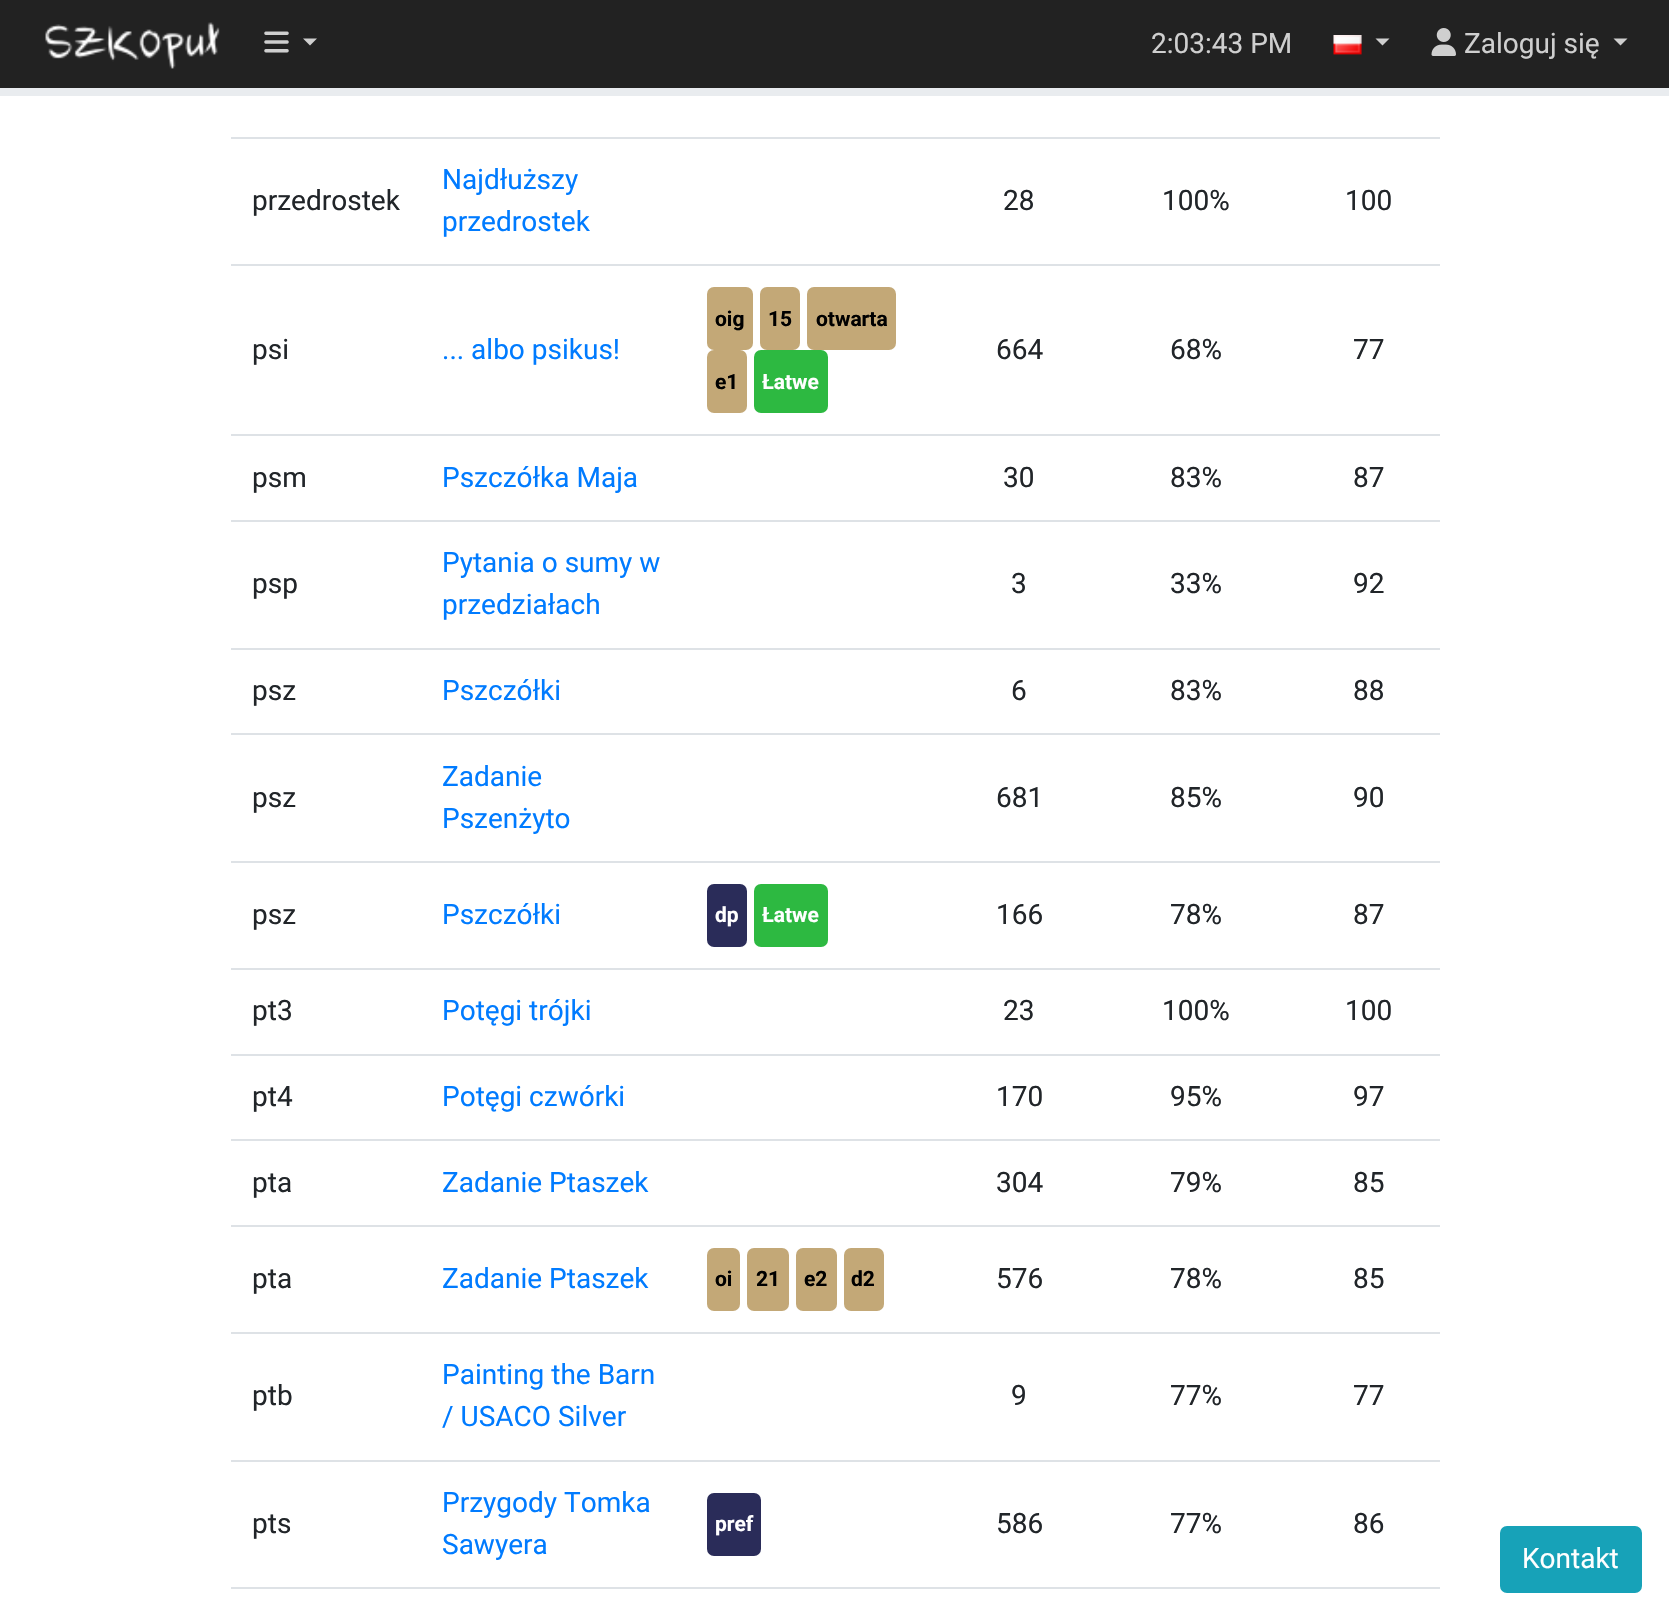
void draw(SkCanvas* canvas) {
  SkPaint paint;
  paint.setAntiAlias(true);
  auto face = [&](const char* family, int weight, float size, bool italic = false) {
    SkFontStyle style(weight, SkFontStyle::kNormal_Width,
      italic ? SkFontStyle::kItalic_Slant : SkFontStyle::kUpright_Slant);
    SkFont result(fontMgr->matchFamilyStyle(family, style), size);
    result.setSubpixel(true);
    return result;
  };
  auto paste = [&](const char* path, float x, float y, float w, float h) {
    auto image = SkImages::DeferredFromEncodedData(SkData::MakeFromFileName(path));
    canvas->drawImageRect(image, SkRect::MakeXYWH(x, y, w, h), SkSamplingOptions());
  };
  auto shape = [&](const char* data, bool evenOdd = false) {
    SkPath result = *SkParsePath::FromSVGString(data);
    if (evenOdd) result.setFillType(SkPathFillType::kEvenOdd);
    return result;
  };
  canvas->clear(0xffffffff);
  paint.setColor(0xff222222);
  canvas->drawRect(SkRect::MakeXYWH(0, 0, 1669, 88), paint);
  paste("img/1.png", 45, 22, 175, 47);
  paste("img/2.png", 264, 31, 25, 22);
  paint.setColor(0xffcfcfcf);
  canvas->drawPath(shape("M303 38.5H317L310 45.5Z"), paint);
  paste("img/3.png", 1333, 35, 29, 20);
  canvas->drawPath(shape("M1375.5 38.5H1389.5L1382.5 45.5Z"), paint);
  paste("img/4.png", 1431, 28, 25, 28);
  canvas->drawPath(shape("M1613.5 38.5H1627.5L1620.5 45.5Z"), paint);
  paint.setColor(0xffe9ecef);
  canvas->drawRect(SkRect::MakeXYWH(0, 88, 1669, 8), paint);
  paint.setColor(0xffdee2e6);
  canvas->drawRect(SkRect::MakeXYWH(231, 137, 1209, 2), paint);
  paint.setColor(0xffc3a877);
  canvas->drawRoundRect(SkRect::MakeXYWH(707, 287, 46, 63), 7, 7, paint);
  canvas->drawRoundRect(SkRect::MakeXYWH(760, 287, 40, 63), 7, 7, paint);
  canvas->drawRoundRect(SkRect::MakeXYWH(807, 287, 89, 63), 7, 7, paint);
  canvas->drawRoundRect(SkRect::MakeXYWH(707, 350, 40, 63), 7, 7, paint);
  paint.setColor(0xff2db941);
  canvas->drawRoundRect(SkRect::MakeXYWH(754, 350, 74, 63), 7, 7, paint);
  {
    const struct { float x, y, w, h; SkColor color; } items[] = {
      {231, 264, 1209, 2, 0xffdee2e6},
      {231, 434, 1209, 2, 0xffdee2e6},
      {231, 520, 1209, 2, 0xffdee2e6},
      {231, 648, 1209, 2, 0xffdee2e6},
      {231, 733, 1209, 2, 0xffdee2e6},
    };
    for (auto [x, y, w, h, color] : items) {
      paint.setColor(color);
      canvas->drawRect(SkRect::MakeXYWH(x, y, w, h), paint);
    }
  }
  paint.setColor(0xff2a2c59);
  canvas->drawRoundRect(SkRect::MakeXYWH(707, 884, 40, 63), 7, 7, paint);
  paint.setColor(0xff2db941);
  canvas->drawRoundRect(SkRect::MakeXYWH(754, 884, 74, 63), 7, 7, paint);
  {
    const struct { float x, y, w, h; SkColor color; } items[] = {
      {231, 861, 1209, 2, 0xffdee2e6},
      {231, 968, 1209, 2, 0xffdee2e6},
      {231, 1054, 1209, 2, 0xffdee2e6},
      {231, 1139, 1209, 2, 0xffdee2e6},
    };
    for (auto [x, y, w, h, color] : items) {
      paint.setColor(color);
      canvas->drawRect(SkRect::MakeXYWH(x, y, w, h), paint);
    }
  }
  paint.setColor(0xffc3a877);
  canvas->drawRoundRect(SkRect::MakeXYWH(707, 1248, 33, 63), 7, 7, paint);
  canvas->drawRoundRect(SkRect::MakeXYWH(747, 1248, 42, 63), 7, 7, paint);
  canvas->drawRoundRect(SkRect::MakeXYWH(796, 1248, 41, 63), 7, 7, paint);
  canvas->drawRoundRect(SkRect::MakeXYWH(844, 1248, 40, 63), 7, 7, paint);
  paint.setColor(0xffdee2e6);
  canvas->drawRect(SkRect::MakeXYWH(231, 1225, 1209, 2), paint);
  canvas->drawRect(SkRect::MakeXYWH(231, 1332, 1209, 2), paint);
  paint.setColor(0xff2a2c59);
  canvas->drawRoundRect(SkRect::MakeXYWH(707, 1493, 54, 63), 7, 7, paint);
  paint.setColor(0xffdee2e6);
  canvas->drawRect(SkRect::MakeXYWH(231, 1460, 1209, 2), paint);
  canvas->drawRect(SkRect::MakeXYWH(231, 1587, 1209, 2), paint);
  paint.setColor(0xff17a2b8);
  canvas->drawRoundRect(SkRect::MakeXYWH(1501, 1527, 140, 65), 6, 6, paint);
  paint.setStroke(true);
  paint.setStrokeWidth(2);
  canvas->drawRoundRect(SkRect::MakeXYWH(1501, 1527, 140, 65), 6, 6, paint);
  auto f0 = face("Roboto", 400, 28);
  paint.setStroke(false);
  paint.setColor(0xffcfcfcf);
  canvas->drawString("2:03:43 PM", 1151, 53, f0, paint);
  canvas->drawString("Zaloguj się", 1464, 53, f0, paint);
  paint.setColor(0xff212529);
  canvas->drawString("przedrostek", 252, 210, f0, paint);
  paint.setColor(0xff007bff);
  canvas->drawString("Najdłuższy", 442, 189, f0, paint);
  canvas->drawString("przedrostek", 442, 231, f0, paint);
  paint.setColor(0xff212529);
  {
    const struct { const char* s; float x, y; } items[] = {
      {"28", 1003, 210},
      {"100%", 1162, 210},
      {"100", 1345, 210},
      {"psi", 252, 359},
    };
    for (auto [s, x, y] : items) {
      canvas->drawString(s, x, y, f0, paint);
    }
  }
  paint.setColor(0xff007bff);
  canvas->drawString("... albo psikus!", 442, 359, f0, paint);
  auto f1 = face("Roboto", 700, 21);
  paint.setColor(0xff000000);
  {
    const struct { const char* s; float x, y; } items[] = {
      {"oig", 715, 326},
      {"15", 768, 326},
      {"otwarta", 816, 326},
      {"e1", 715, 389},
    };
    for (auto [s, x, y] : items) {
      canvas->drawString(s, x, y, f1, paint);
    }
  }
  paint.setColor(0xffffffff);
  canvas->drawString("Łatwe", 762, 389, f1, paint);
  paint.setColor(0xff212529);
  {
    const struct { const char* s; float x, y; } items[] = {
      {"664", 996, 359},
      {"68%", 1170, 359},
      {"77", 1353, 359},
      {"psm", 252, 487},
    };
    for (auto [s, x, y] : items) {
      canvas->drawString(s, x, y, f0, paint);
    }
  }
  paint.setColor(0xff007bff);
  canvas->drawString("Pszczółka Maja", 442, 487, f0, paint);
  paint.setColor(0xff212529);
  {
    const struct { const char* s; float x, y; } items[] = {
      {"30", 1003, 487},
      {"83%", 1170, 487},
      {"87", 1353, 487},
      {"psp", 252, 593},
    };
    for (auto [s, x, y] : items) {
      canvas->drawString(s, x, y, f0, paint);
    }
  }
  paint.setColor(0xff007bff);
  canvas->drawString("Pytania o sumy w", 442, 572, f0, paint);
  canvas->drawString("przedziałach", 442, 614, f0, paint);
  paint.setColor(0xff212529);
  {
    const struct { const char* s; float x, y; } items[] = {
      {"3", 1011, 593},
      {"33%", 1170, 593},
      {"92", 1353, 593},
      {"psz", 252, 700},
    };
    for (auto [s, x, y] : items) {
      canvas->drawString(s, x, y, f0, paint);
    }
  }
  paint.setColor(0xff007bff);
  canvas->drawString("Pszczółki", 442, 700, f0, paint);
  paint.setColor(0xff212529);
  {
    const struct { const char* s; float x, y; } items[] = {
      {"6", 1011, 700},
      {"83%", 1170, 700},
      {"88", 1353, 700},
      {"psz", 252, 807},
    };
    for (auto [s, x, y] : items) {
      canvas->drawString(s, x, y, f0, paint);
    }
  }
  paint.setColor(0xff007bff);
  canvas->drawString("Zadanie", 442, 786, f0, paint);
  canvas->drawString("Pszenżyto", 442, 828, f0, paint);
  paint.setColor(0xff212529);
  {
    const struct { const char* s; float x, y; } items[] = {
      {"681", 996, 807},
      {"85%", 1170, 807},
      {"90", 1353, 807},
      {"psz", 252, 924},
    };
    for (auto [s, x, y] : items) {
      canvas->drawString(s, x, y, f0, paint);
    }
  }
  paint.setColor(0xff007bff);
  canvas->drawString("Pszczółki", 442, 924, f0, paint);
  paint.setColor(0xffffffff);
  canvas->drawString("dp", 715, 922, f1, paint);
  canvas->drawString("Łatwe", 762, 922, f1, paint);
  paint.setColor(0xff212529);
  {
    const struct { const char* s; float x, y; } items[] = {
      {"166", 996, 924},
      {"78%", 1170, 924},
      {"87", 1353, 924},
      {"pt3", 252, 1020},
    };
    for (auto [s, x, y] : items) {
      canvas->drawString(s, x, y, f0, paint);
    }
  }
  paint.setColor(0xff007bff);
  canvas->drawString("Potęgi trójki", 442, 1020, f0, paint);
  paint.setColor(0xff212529);
  {
    const struct { const char* s; float x, y; } items[] = {
      {"23", 1003, 1020},
      {"100%", 1162, 1020},
      {"100", 1345, 1020},
      {"pt4", 252, 1106},
    };
    for (auto [s, x, y] : items) {
      canvas->drawString(s, x, y, f0, paint);
    }
  }
  paint.setColor(0xff007bff);
  canvas->drawString("Potęgi czwórki", 442, 1106, f0, paint);
  paint.setColor(0xff212529);
  {
    const struct { const char* s; float x, y; } items[] = {
      {"170", 996, 1106},
      {"95%", 1170, 1106},
      {"97", 1353, 1106},
      {"pta", 252, 1192},
    };
    for (auto [s, x, y] : items) {
      canvas->drawString(s, x, y, f0, paint);
    }
  }
  paint.setColor(0xff007bff);
  canvas->drawString("Zadanie Ptaszek", 442, 1192, f0, paint);
  paint.setColor(0xff212529);
  {
    const struct { const char* s; float x, y; } items[] = {
      {"304", 996, 1192},
      {"79%", 1170, 1192},
      {"85", 1353, 1192},
      {"pta", 252, 1288},
    };
    for (auto [s, x, y] : items) {
      canvas->drawString(s, x, y, f0, paint);
    }
  }
  paint.setColor(0xff007bff);
  canvas->drawString("Zadanie Ptaszek", 442, 1288, f0, paint);
  paint.setColor(0xff000000);
  {
    const struct { const char* s; float x, y; } items[] = {
      {"oi", 715, 1286},
      {"21", 756, 1286},
      {"e2", 804, 1286},
      {"d2", 851, 1286},
    };
    for (auto [s, x, y] : items) {
      canvas->drawString(s, x, y, f1, paint);
    }
  }
  paint.setColor(0xff212529);
  {
    const struct { const char* s; float x, y; } items[] = {
      {"576", 996, 1288},
      {"78%", 1170, 1288},
      {"85", 1353, 1288},
      {"ptb", 252, 1405},
    };
    for (auto [s, x, y] : items) {
      canvas->drawString(s, x, y, f0, paint);
    }
  }
  paint.setColor(0xff007bff);
  canvas->drawString("Painting the Barn", 442, 1384, f0, paint);
  canvas->drawString("/ USACO Silver", 442, 1426, f0, paint);
  paint.setColor(0xff212529);
  {
    const struct { const char* s; float x, y; } items[] = {
      {"9", 1011, 1405},
      {"77%", 1170, 1405},
      {"77", 1353, 1405},
      {"pts", 252, 1533},
    };
    for (auto [s, x, y] : items) {
      canvas->drawString(s, x, y, f0, paint);
    }
  }
  paint.setColor(0xff007bff);
  canvas->drawString("Przygody Tomka", 442, 1512, f0, paint);
  canvas->drawString("Sawyera", 442, 1554, f0, paint);
  paint.setColor(0xffffffff);
  canvas->drawString("pref", 715, 1531, f1, paint);
  paint.setColor(0xff212529);
  {
    const struct { const char* s; float x, y; } items[] = {
      {"586", 996, 1533},
      {"77%", 1170, 1533},
      {"86", 1353, 1533},
    };
    for (auto [s, x, y] : items) {
      canvas->drawString(s, x, y, f0, paint);
    }
  }
  paint.setColor(0xffffffff);
  canvas->drawString("Kontakt", 1522, 1568, f0, paint);
}
